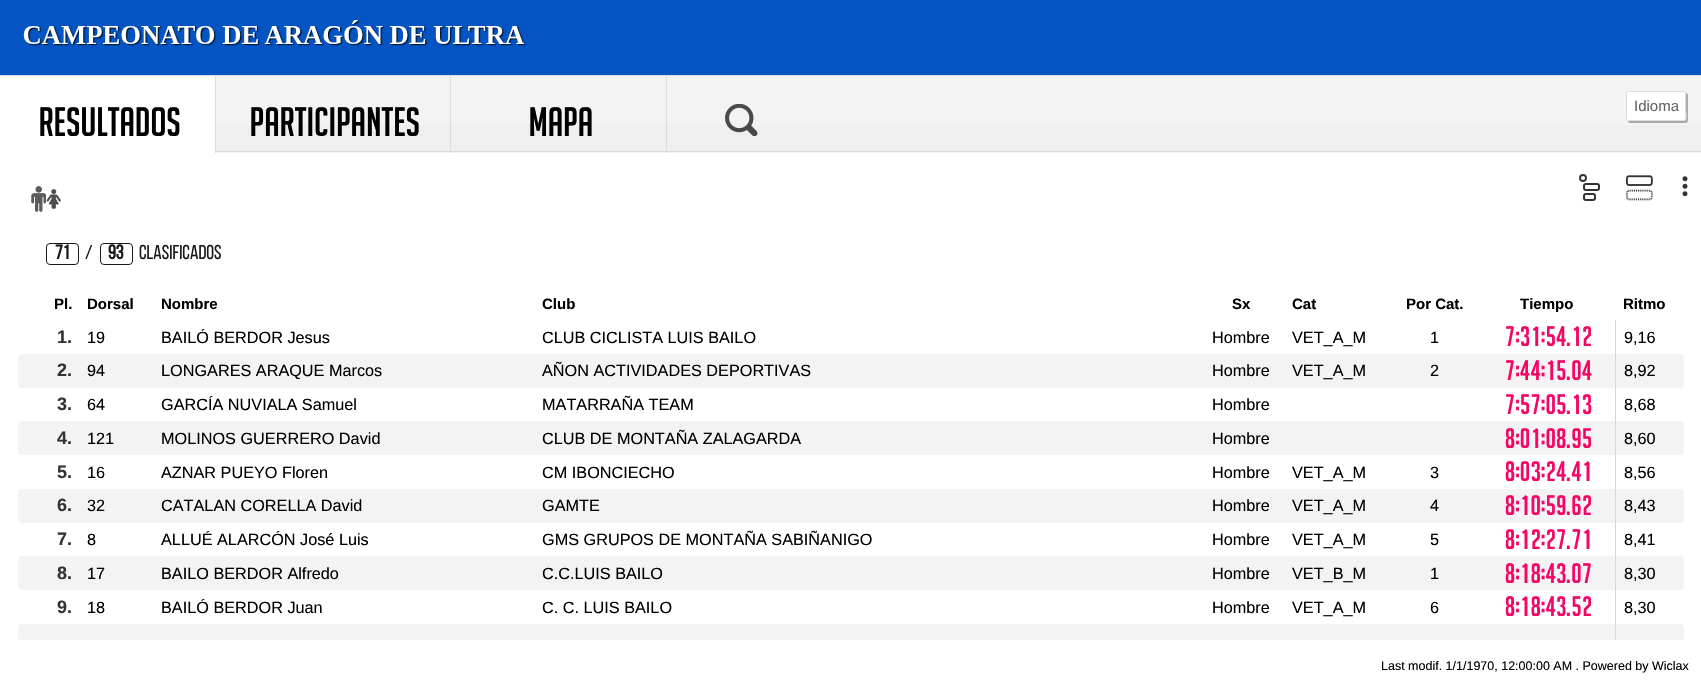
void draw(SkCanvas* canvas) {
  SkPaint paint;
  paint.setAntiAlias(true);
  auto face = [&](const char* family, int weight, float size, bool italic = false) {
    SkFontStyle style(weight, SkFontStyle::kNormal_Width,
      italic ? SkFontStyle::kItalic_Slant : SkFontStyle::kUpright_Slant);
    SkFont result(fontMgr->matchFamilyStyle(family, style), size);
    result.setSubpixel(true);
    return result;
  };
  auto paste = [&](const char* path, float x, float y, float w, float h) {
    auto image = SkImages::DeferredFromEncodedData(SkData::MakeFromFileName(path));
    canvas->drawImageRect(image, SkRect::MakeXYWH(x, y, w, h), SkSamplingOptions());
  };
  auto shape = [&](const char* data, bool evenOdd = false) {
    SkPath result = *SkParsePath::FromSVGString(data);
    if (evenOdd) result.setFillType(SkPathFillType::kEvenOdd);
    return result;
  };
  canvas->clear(0xffffffff);
  paste("img/1.png", 0, 0, 1701, 75);
  {
    const struct { float x, y, w, h; SkColor color; } items[] = {
      {0, 75, 1701, 1, 0xffdddddd},
      {216, 125, 1485, 26, 0xffefefef},
      {216, 76, 1485, 49, 0xfff3f3f3},
      {216, 152, 1485, 1, 0xfff3f3f3},
      {216, 151, 1485, 1, 0xffdddddd},
      {215, 76, 1, 77, 0xffdddddd},
      {450, 76, 1, 77, 0xffdddddd},
      {666, 76, 1, 77, 0xffdddddd},
    };
    for (auto [x, y, w, h, color] : items) {
      paint.setColor(color);
      canvas->drawRect(SkRect::MakeXYWH(x, y, w, h), paint);
    }
  }
  paste("img/2.png", 725, 104, 33, 32);
  paint.setColor(0xffaaaaaa);
  canvas->drawPath(shape("M1628 121C1628 122 1629 123 1630 123H1686C1687 123 1688 122 1688 120V96C1688 94 1687 93 1686 93V110C1686 112 1688 121 1684 121Z"), paint);
  paint.setColor(0xffffffff);
  canvas->drawRoundRect(SkRect::MakeXYWH(1626.5f, 91.5f, 59, 29), 2, 2, paint);
  paint.setStroke(true);
  paint.setStrokeWidth(1);
  paint.setColor(0xffdddddd);
  canvas->drawRoundRect(SkRect::MakeXYWH(1626.5f, 91.5f, 59, 29), 2, 2, paint);
  paste("img/3.png", 31, 186, 15, 26);
  paste("img/4.png", 46, 189, 15, 20);
  paint.setStrokeWidth(1.9f);
  paint.setColor(0xff333333);
  canvas->drawCircle(1583, 178, 3, paint);
  paint.setStrokeWidth(2);
  canvas->drawRoundRect(SkRect::MakeXYWH(1584, 184, 15, 6), 2, 2, paint);
  canvas->drawRoundRect(SkRect::MakeXYWH(1584, 194, 11, 6), 2, 2, paint);
  paste("img/5.png", 1625, 175, 28, 26);
  paste("img/6.png", 1682, 176, 6, 21);
  paint.setStrokeWidth(1);
  paint.setColor(0xff1a1a1a);
  canvas->drawRoundRect(SkRect::MakeXYWH(46.5f, 243.5f, 32, 21), 3.5f, 3.5f, paint);
  canvas->drawRoundRect(SkRect::MakeXYWH(100.5f, 243.5f, 32, 21), 3.5f, 3.5f, paint);
  paint.setStroke(false);
  paint.setColor(0xfff3f3f3);
  canvas->drawPath(shape("M22 624H80V640H18V628C18 626 20 624 22 624Z"), paint);
  canvas->drawRect(SkRect::MakeXYWH(80, 624, 1535, 16), paint);
  canvas->drawPath(shape("M1615 624H1680C1682 624 1684 626 1684 628V640H1615Z"), paint);
  canvas->drawPath(shape("M1615 354H1680C1682 354 1684 356 1684 358V384C1684 386 1682 388 1680 388H1615Z"), paint);
  canvas->drawPath(shape("M1615 421H1680C1682 421 1684 423 1684 425V451C1684 453 1682 455 1680 455H1615Z"), paint);
  canvas->drawPath(shape("M1615 489H1680C1682 489 1684 491 1684 493V519C1684 521 1682 523 1680 523H1615Z"), paint);
  canvas->drawPath(shape("M1615 556H1680C1682 556 1684 558 1684 560V586C1684 588 1682 590 1680 590H1615Z"), paint);
  paint.setColor(0xffd6d6d6);
  canvas->drawRect(SkRect::MakeXYWH(1615, 320, 1, 320), paint);
  paint.setColor(0xfff3f3f3);
  canvas->drawPath(shape("M22 354H80V388H22C20 388 18 386 18 384V358C18 356 20 354 22 354Z"), paint);
  canvas->drawRect(SkRect::MakeXYWH(80, 354, 1535, 34), paint);
  canvas->drawPath(shape("M22 421H80V455H22C20 455 18 453 18 451V425C18 423 20 421 22 421Z"), paint);
  canvas->drawRect(SkRect::MakeXYWH(80, 421, 1535, 34), paint);
  canvas->drawPath(shape("M22 489H80V523H22C20 523 18 521 18 519V493C18 491 20 489 22 489Z"), paint);
  canvas->drawRect(SkRect::MakeXYWH(80, 489, 1535, 34), paint);
  canvas->drawPath(shape("M22 556H80V590H22C20 590 18 588 18 586V560C18 558 20 556 22 556Z"), paint);
  canvas->drawRect(SkRect::MakeXYWH(80, 556, 1535, 34), paint);
  auto f0 = face("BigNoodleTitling", 100, 40);
  paint.setColor(0xff000000);
  {
    const struct { const char* s; float x, y; } items[] = {
      {"Resultados", 37, 136},
      {"Participantes", 248, 136},
      {"Mapa", 527, 136},
    };
    for (auto [s, x, y] : items) {
      canvas->drawString(s, x, y, f0, paint);
    }
  }
  auto f1 = face("Liberation Sans", 400, 15);
  paint.setColor(0xff666666);
  canvas->drawString("Idioma", 1634, 111, f1, paint);
  auto f2 = face("Bebas Neue", 700, 20);
  paint.setColor(0xff1a1a1a);
  canvas->drawString("71", 55, 259, f2, paint);
  auto f3 = face("Bebas Neue", 400, 20);
  canvas->drawString("/", 85, 259, f3, paint);
  canvas->drawString("93", 108, 259, f2, paint);
  canvas->drawString("Clasificados", 139, 259, f3, paint);
  auto f4 = face("Liberation Sans", 700, 15);
  paint.setColor(0xff000000);
  {
    const struct { const char* s; float x, y; } items[] = {
      {"Pl.", 54, 309},
      {"Dorsal", 87, 309},
      {"Nombre", 161, 309},
      {"Club", 542, 309},
      {"Sx", 1232, 309},
      {"Cat", 1292, 309},
      {"Por Cat.", 1406, 309},
      {"Tiempo", 1520, 309},
      {"Ritmo", 1623, 309},
    };
    for (auto [s, x, y] : items) {
      canvas->drawString(s, x, y, f4, paint);
    }
  }
  auto f5 = face("Liberation Sans", 700, 18);
  paint.setColor(0xff333333);
  canvas->drawString("1.", 57, 343, f5, paint);
  auto f6 = face("Liberation Sans", 400, 16.25f);
  paint.setColor(0xff000000);
  {
    const struct { const char* s; float x, y; } items[] = {
      {"19", 87, 343},
      {"BAILÓ BERDOR Jesus", 161, 343},
      {"CLUB CICLISTA LUIS BAILO", 542, 343},
      {"Hombre", 1212, 343},
      {"VET_A_M", 1292, 343},
      {"1", 1430, 343},
    };
    for (auto [s, x, y] : items) {
      canvas->drawString(s, x, y, f6, paint);
    }
  }
  auto f7 = face("BigNoodleTitling", 100, 27.5f);
  paint.setColor(0xfff50666);
  canvas->drawString("7:31:54.12", 1503, 346, f7, paint);
  paint.setColor(0xff000000);
  canvas->drawString("9,16", 1624, 343, f6, paint);
  paint.setColor(0xff333333);
  canvas->drawString("2.", 57, 376, f5, paint);
  paint.setColor(0xff000000);
  {
    const struct { const char* s; float x, y; } items[] = {
      {"94", 87, 376},
      {"LONGARES ARAQUE Marcos", 161, 376},
      {"AÑON ACTIVIDADES DEPORTIVAS", 542, 376},
      {"Hombre", 1212, 376},
      {"VET_A_M", 1292, 376},
      {"2", 1430, 376},
    };
    for (auto [s, x, y] : items) {
      canvas->drawString(s, x, y, f6, paint);
    }
  }
  paint.setColor(0xfff50666);
  canvas->drawString("7:44:15.04", 1503, 380, f7, paint);
  paint.setColor(0xff000000);
  canvas->drawString("8,92", 1624, 376, f6, paint);
  paint.setColor(0xff333333);
  canvas->drawString("3.", 57, 410, f5, paint);
  paint.setColor(0xff000000);
  {
    const struct { const char* s; float x, y; } items[] = {
      {"64", 87, 410},
      {"GARCÍA NUVIALA Samuel", 161, 410},
      {"MATARRAÑA TEAM", 542, 410},
      {"Hombre", 1212, 410},
    };
    for (auto [s, x, y] : items) {
      canvas->drawString(s, x, y, f6, paint);
    }
  }
  paint.setColor(0xfff50666);
  canvas->drawString("7:57:05.13", 1503, 414, f7, paint);
  paint.setColor(0xff000000);
  canvas->drawString("8,68", 1624, 410, f6, paint);
  paint.setColor(0xff333333);
  canvas->drawString("4.", 57, 444, f5, paint);
  paint.setColor(0xff000000);
  {
    const struct { const char* s; float x, y; } items[] = {
      {"121", 87, 444},
      {"MOLINOS GUERRERO David", 161, 444},
      {"CLUB DE MONTAÑA ZALAGARDA", 542, 444},
      {"Hombre", 1212, 444},
    };
    for (auto [s, x, y] : items) {
      canvas->drawString(s, x, y, f6, paint);
    }
  }
  paint.setColor(0xfff50666);
  canvas->drawString("8:01:08.95", 1503, 448, f7, paint);
  paint.setColor(0xff000000);
  canvas->drawString("8,60", 1624, 444, f6, paint);
  paint.setColor(0xff333333);
  canvas->drawString("5.", 57, 478, f5, paint);
  paint.setColor(0xff000000);
  {
    const struct { const char* s; float x, y; } items[] = {
      {"16", 87, 478},
      {"AZNAR PUEYO Floren", 161, 478},
      {"CM IBONCIECHO", 542, 478},
      {"Hombre", 1212, 478},
      {"VET_A_M", 1292, 478},
      {"3", 1430, 478},
    };
    for (auto [s, x, y] : items) {
      canvas->drawString(s, x, y, f6, paint);
    }
  }
  paint.setColor(0xfff50666);
  canvas->drawString("8:03:24.41", 1503, 481, f7, paint);
  paint.setColor(0xff000000);
  canvas->drawString("8,56", 1624, 478, f6, paint);
  paint.setColor(0xff333333);
  canvas->drawString("6.", 57, 511, f5, paint);
  paint.setColor(0xff000000);
  {
    const struct { const char* s; float x, y; } items[] = {
      {"32", 87, 511},
      {"CATALAN CORELLA David", 161, 511},
      {"GAMTE", 542, 511},
      {"Hombre", 1212, 511},
      {"VET_A_M", 1292, 511},
      {"4", 1430, 511},
    };
    for (auto [s, x, y] : items) {
      canvas->drawString(s, x, y, f6, paint);
    }
  }
  paint.setColor(0xfff50666);
  canvas->drawString("8:10:59.62", 1503, 515, f7, paint);
  paint.setColor(0xff000000);
  canvas->drawString("8,43", 1624, 511, f6, paint);
  paint.setColor(0xff333333);
  canvas->drawString("7.", 57, 545, f5, paint);
  paint.setColor(0xff000000);
  {
    const struct { const char* s; float x, y; } items[] = {
      {"8", 87, 545},
      {"ALLUÉ ALARCÓN José Luis", 161, 545},
      {"GMS GRUPOS DE MONTAÑA SABIÑANIGO", 542, 545},
      {"Hombre", 1212, 545},
      {"VET_A_M", 1292, 545},
      {"5", 1430, 545},
    };
    for (auto [s, x, y] : items) {
      canvas->drawString(s, x, y, f6, paint);
    }
  }
  paint.setColor(0xfff50666);
  canvas->drawString("8:12:27.71", 1503, 549, f7, paint);
  paint.setColor(0xff000000);
  canvas->drawString("8,41", 1624, 545, f6, paint);
  paint.setColor(0xff333333);
  canvas->drawString("8.", 57, 579, f5, paint);
  paint.setColor(0xff000000);
  {
    const struct { const char* s; float x, y; } items[] = {
      {"17", 87, 579},
      {"BAILO BERDOR Alfredo", 161, 579},
      {"C.C.LUIS BAILO", 542, 579},
      {"Hombre", 1212, 579},
      {"VET_B_M", 1292, 579},
      {"1", 1430, 579},
    };
    for (auto [s, x, y] : items) {
      canvas->drawString(s, x, y, f6, paint);
    }
  }
  paint.setColor(0xfff50666);
  canvas->drawString("8:18:43.07", 1503, 583, f7, paint);
  paint.setColor(0xff000000);
  canvas->drawString("8,30", 1624, 579, f6, paint);
  paint.setColor(0xff333333);
  canvas->drawString("9.", 57, 613, f5, paint);
  paint.setColor(0xff000000);
  {
    const struct { const char* s; float x, y; } items[] = {
      {"18", 87, 613},
      {"BAILÓ BERDOR Juan", 161, 613},
      {"C. C. LUIS BAILO", 542, 613},
      {"Hombre", 1212, 613},
      {"VET_A_M", 1292, 613},
      {"6", 1430, 613},
    };
    for (auto [s, x, y] : items) {
      canvas->drawString(s, x, y, f6, paint);
    }
  }
  paint.setColor(0xfff50666);
  canvas->drawString("8:18:43.52", 1503, 616, f7, paint);
  paint.setColor(0xff000000);
  canvas->drawString("8,30", 1624, 613, f6, paint);
  auto f8 = face("Liberation Sans", 400, 12.5f);
  canvas->drawString("Last modif. 1/1/1970, 12:00:00 AM . Powered by Wiclax", 1381, 670, f8, paint);
}
